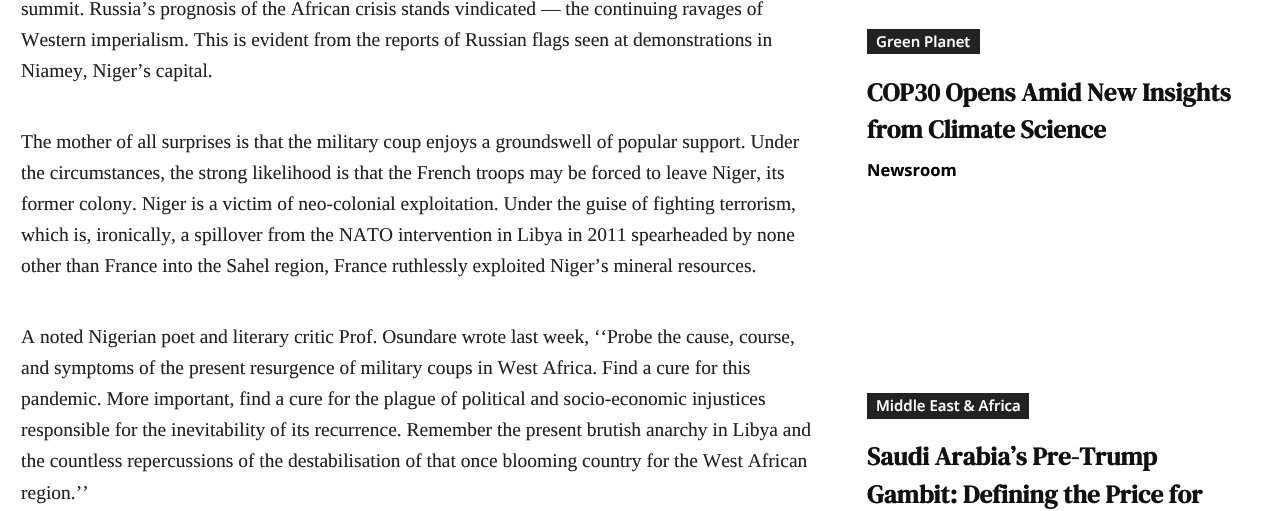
void draw(SkCanvas* canvas) {
  SkPaint paint;
  paint.setAntiAlias(true);
  auto face = [&](const char* family, int weight, float size, bool italic = false) {
    SkFontStyle style(weight, SkFontStyle::kNormal_Width,
      italic ? SkFontStyle::kItalic_Slant : SkFontStyle::kUpright_Slant);
    SkFont result(fontMgr->matchFamilyStyle(family, style), size);
    result.setSubpixel(true);
    return result;
  };
  canvas->clear(0xffffffff);
  paint.setColor(0xff222222);
  canvas->drawRect(SkRect::MakeXYWH(867, 29, 113, 25), paint);
  canvas->drawRect(SkRect::MakeXYWH(867, 393, 162, 26), paint);
  auto f0 = face("Liberation Serif", 400, 19.5f);
  {
    const struct { const char* s; float x, y; } items[] = {
      {"summit. Russia’s prognosis of the African crisis stands vindicated — the continuing ravages of", 21, 15},
      {"Western imperialism. This is evident from the reports of Russian flags seen at demonstrations in", 21, 46},
      {"Niamey, Niger’s capital.", 21, 77},
      {"The mother of all surprises is that the military coup enjoys a groundswell of popular support. Under", 21, 148},
      {"the circumstances, the strong likelihood is that the French troops may be forced to leave Niger, its", 21, 179},
      {"former colony. Niger is a victim of neo-colonial exploitation. Under the guise of fighting terrorism,", 21, 210},
      {"which is, ironically, a spillover from the NATO intervention in Libya in 2011 spearheaded by none", 21, 241},
      {"other than France into the Sahel region, France ruthlessly exploited Niger’s mineral resources.", 21, 272},
      {"A noted Nigerian poet and literary critic Prof. Osundare wrote last week, ‘‘Probe the cause, course,", 21, 343},
      {"and symptoms of the present resurgence of military coups in West Africa. Find a cure for this", 21, 374},
      {"pandemic. More important, find a cure for the plague of political and socio-economic injustices", 21, 405},
      {"responsible for the inevitability of its recurrence. Remember the present brutish anarchy in Libya and", 21, 436},
      {"the countless repercussions of the destabilisation of that once blooming country for the West African", 21, 467},
      {"region.’’", 21, 499},
    };
    for (auto [s, x, y] : items) {
      canvas->drawString(s, x, y, f0, paint);
    }
  }
  auto f1 = face("Open Sans", 600, 15);
  paint.setColor(0xffffffff);
  canvas->drawString("Green Planet", 876, 47, f1, paint);
  auto f2 = face("DM Serif Text", 700, 25.5f);
  paint.setColor(0xff111111);
  canvas->drawString("COP30 Opens Amid New Insights", 867, 101, f2, paint);
  canvas->drawString("from Climate Science", 867, 138, f2, paint);
  auto f3 = face("Open Sans", 700, 16.5f);
  paint.setColor(0xff000000);
  canvas->drawString("Newsroom", 867, 176, f3, paint);
  paint.setColor(0xffffffff);
  canvas->drawString("Middle East & Africa", 876, 411, f1, paint);
  paint.setColor(0xff111111);
  canvas->drawString("Saudi Arabia’s Pre-Trump", 867, 465, f2, paint);
  canvas->drawString("Gambit: Defining the Price for", 867, 503, f2, paint);
}
